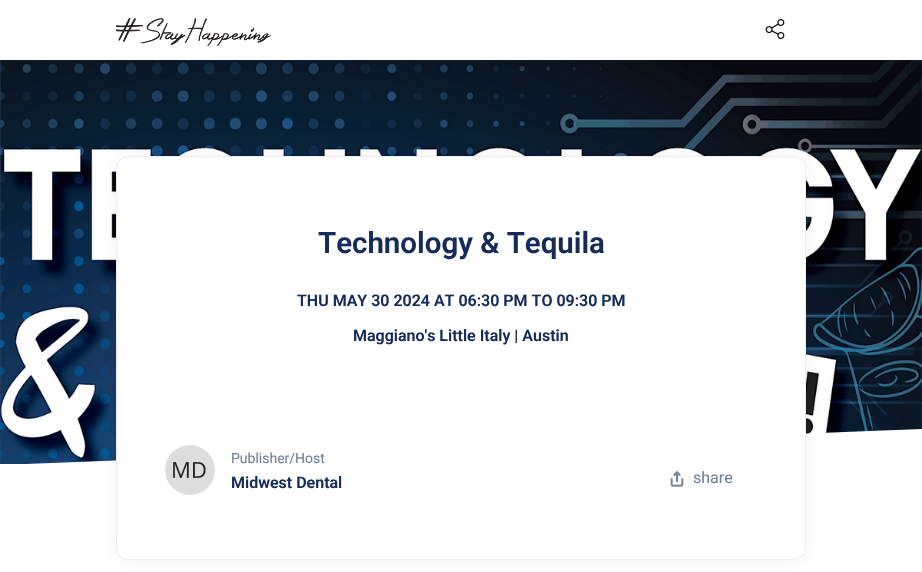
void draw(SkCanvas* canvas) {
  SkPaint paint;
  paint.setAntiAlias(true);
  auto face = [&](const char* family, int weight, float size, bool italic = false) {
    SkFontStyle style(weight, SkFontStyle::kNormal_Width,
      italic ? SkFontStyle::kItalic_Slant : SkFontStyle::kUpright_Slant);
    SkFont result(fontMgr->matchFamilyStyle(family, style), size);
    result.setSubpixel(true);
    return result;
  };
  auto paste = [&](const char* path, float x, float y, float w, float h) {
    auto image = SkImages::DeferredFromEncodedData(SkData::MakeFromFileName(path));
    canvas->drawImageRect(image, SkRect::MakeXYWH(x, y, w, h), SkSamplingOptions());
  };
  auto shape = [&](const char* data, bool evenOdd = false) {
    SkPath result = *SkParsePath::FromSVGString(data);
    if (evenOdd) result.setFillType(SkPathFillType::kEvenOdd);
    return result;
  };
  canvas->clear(0xffffffff);
  paste("img/1.png", 116, 18, 155, 28);
  paste("img/2.png", 765, 19, 20, 20);
  paste("img/3.png", 0, 60, 922, 404);
  paint.setColor(0xffffffff);
  canvas->drawPath(shape("M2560 365V465H0Z"), paint);
  paint.setColor(0x0d1f2d3d);
  paint.setMaskFilter(SkMaskFilter::MakeBlur(kNormal_SkBlurStyle, 10));
  canvas->drawRoundRect(SkRect::MakeXYWH(116, 156, 690, 404), 12, 12, paint);
  paint.setMaskFilter(nullptr);
  paint.setColor(0xffffffff);
  canvas->drawRoundRect(SkRect::MakeXYWH(116.5f, 156.5f, 689, 403), 11.5f, 11.5f, paint);
  paint.setStroke(true);
  paint.setStrokeWidth(1);
  paint.setColor(0xffeaecf3);
  canvas->drawRoundRect(SkRect::MakeXYWH(116.5f, 156.5f, 689, 403), 11.5f, 11.5f, paint);
  paste("img/4.png", 165, 445, 50, 50);
  paste("img/5.png", 670, 471, 14, 16);
  auto f0 = face("Roboto", 600, 29.5f);
  paint.setStroke(false);
  paint.setColor(0xff152c5b);
  canvas->drawString("Technology & Tequila", 318, 253, f0, paint);
  auto f1 = face("Roboto", 600, 16);
  canvas->drawString("THU MAY 30 2024 AT 06:30 PM TO 09:30 PM", 297, 306, f1, paint);
  canvas->drawString("Maggiano's Little Italy | Austin", 353, 341, f1, paint);
  auto f2 = face("Roboto", 400, 14);
  paint.setColor(0xff718096);
  canvas->drawString("Publisher/Host", 231, 463, f2, paint);
  paint.setColor(0xff152c5b);
  canvas->drawString("Midwest Dental", 231, 488, f1, paint);
  auto f3 = face("Roboto", 400, 16);
  paint.setColor(0xff718096);
  canvas->drawString("share", 693, 483, f3, paint);
}
